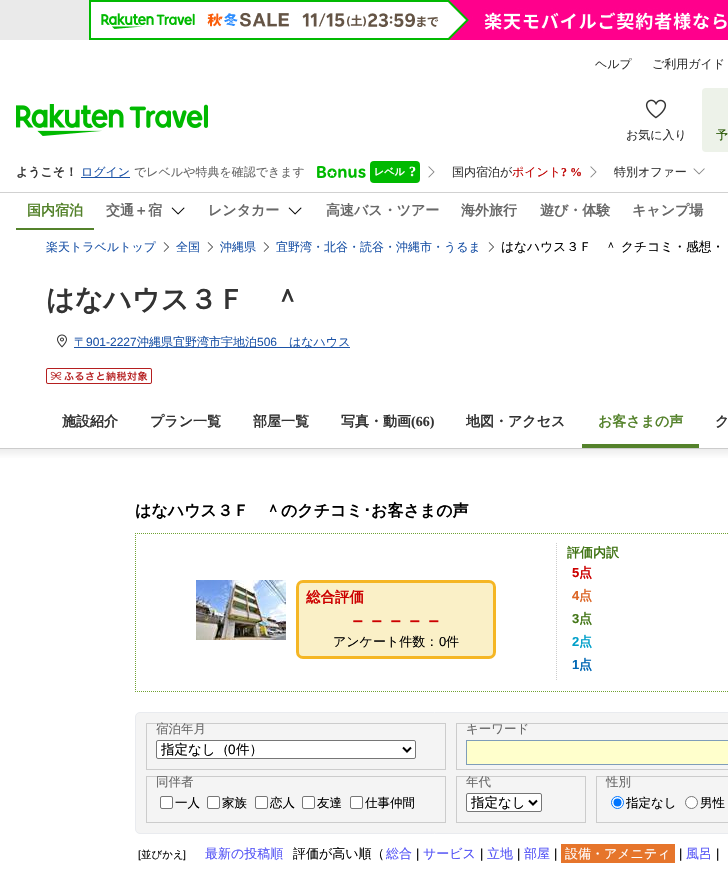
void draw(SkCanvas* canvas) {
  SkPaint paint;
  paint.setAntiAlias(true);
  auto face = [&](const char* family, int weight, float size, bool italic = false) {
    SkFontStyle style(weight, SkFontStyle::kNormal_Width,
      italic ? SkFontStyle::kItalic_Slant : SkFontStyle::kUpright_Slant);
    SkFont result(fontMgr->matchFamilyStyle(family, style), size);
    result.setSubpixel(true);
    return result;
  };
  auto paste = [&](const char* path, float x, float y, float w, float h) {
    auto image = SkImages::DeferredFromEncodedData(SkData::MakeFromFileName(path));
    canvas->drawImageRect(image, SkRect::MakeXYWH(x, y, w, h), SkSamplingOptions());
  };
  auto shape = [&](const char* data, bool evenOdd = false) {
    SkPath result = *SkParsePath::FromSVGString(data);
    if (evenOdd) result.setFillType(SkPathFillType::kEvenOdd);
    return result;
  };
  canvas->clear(0xffffffff);
  paint.setColor(0xffeaeaea);
  canvas->drawRect(SkRect::MakeXYWH(0, 0, 89, 40), paint);
  paste("img/1.png", 89, 0, 639, 40);
  paste("img/2.png", 16, 104, 192, 32);
  paste("img/3.png", 645, 99, 22, 20);
  paint.setColor(0xffedf2e9);
  canvas->drawRoundRect(SkRect::MakeXYWH(702, 88, 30, 64), 4, 4, paint);
  paint.setColor(0xff1d54a7);
  canvas->drawRect(SkRect::MakeXYWH(81, 177, 49, 1), paint);
  paste("img/4.png", 317, 166, 49, 12);
  paint.setColor(0xff00b900);
  canvas->drawRoundRect(SkRect::MakeXYWH(370, 161, 50, 22), 4, 4, paint);
  paste("img/5.png", 428, 166, 7, 12);
  paste("img/5.png", 590, 166, 7, 12);
  paste("img/6.png", 693, 168, 12, 7);
  paint.setColor(0xffd1d1d1);
  canvas->drawRect(SkRect::MakeXYWH(0, 192, 728, 1), paint);
  paint.setColor(0xff54822b);
  canvas->drawRect(SkRect::MakeXYWH(16, 228, 78, 2), paint);
  paste("img/7.png", 171, 207, 14, 8);
  paste("img/7.png", 288, 207, 14, 8);
  paste("img/8.png", 163, 242, 6, 10);
  paste("img/8.png", 207, 242, 6, 10);
  paste("img/8.png", 263, 242, 6, 10);
  paste("img/8.png", 488, 242, 6, 10);
  paste("img/9.png", 57, 334, 10, 14);
  paint.setColor(0xff1d54a7);
  canvas->drawRect(SkRect::MakeXYWH(74, 347, 276, 1), paint);
  paste("img/10.png", 46, 368, 106, 16);
  paint.setColor(0xff54822b);
  canvas->drawRect(SkRect::MakeXYWH(582, 444, 117, 4), paint);
  {
    const SkColor colors[] = {0xffffffff, 0xffededed};
    const float stops[] = {0, 1};
    const SkPoint ends[] = {{610, 459}, {610, 449}};
    paint.setShader(SkGradientShader::MakeLinear(ends, colors, stops, 2, SkTileMode::kClamp));
    paint.setAlpha(255);
  }
  canvas->drawRect(SkRect::MakeXYWH(0, 449, 728, 9), paint);
  paint.setShader(nullptr);
  paint.setColor(0xffcccccc);
  canvas->drawRect(SkRect::MakeXYWH(0, 448, 728, 1), paint);
  paint.setStroke(true);
  paint.setStrokeWidth(1);
  paint.setColor(0xff70a332);
  paint.setPathEffect(SkDashPathEffect::Make({{1, 1}}, 0));
  canvas->drawPath(shape("M135 533.5H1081"), paint);
  paint.setPathEffect(nullptr);
  paint.setPathEffect(SkDashPathEffect::Make({{1, 1}}, 0));
  canvas->drawPath(shape("M135 691.5H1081"), paint);
  paint.setPathEffect(nullptr);
  paint.setPathEffect(SkDashPathEffect::Make({{1, 1}}, 0));
  canvas->drawPath(shape("M135.5 533V692"), paint);
  paint.setPathEffect(nullptr);
  paste("img/11.png", 196, 580, 90, 60);
  paint.setStroke(false);
  paint.setColor(0xfffaf0c7);
  canvas->drawRoundRect(SkRect::MakeXYWH(297.5f, 581.5f, 197, 76), 5.5f, 5.5f, paint);
  paint.setStroke(true);
  paint.setStrokeWidth(3);
  paint.setColor(0xfff5b624);
  canvas->drawRoundRect(SkRect::MakeXYWH(297.5f, 581.5f, 197, 76), 5.5f, 5.5f, paint);
  paint.setStrokeWidth(1);
  paint.setColor(0xffcccccc);
  paint.setPathEffect(SkDashPathEffect::Make({{1, 1}}, 0));
  canvas->drawPath(shape("M556.5 543V681"), paint);
  paint.setPathEffect(nullptr);
  paint.setStroke(false);
  paint.setColor(0xfff4f4f4);
  canvas->drawRoundRect(SkRect::MakeXYWH(135.5f, 712.5f, 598, 121), 4.5f, 4.5f, paint);
  paint.setStroke(true);
  paint.setColor(0xffe9ebef);
  canvas->drawRoundRect(SkRect::MakeXYWH(135.5f, 712.5f, 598, 121), 4.5f, 4.5f, paint);
  paint.setColor(0xffcccccc);
  canvas->drawRect(SkRect::MakeXYWH(146.5f, 723.5f, 299, 46), paint);
  paint.setStroke(false);
  paint.setColor(0xffffffff);
  canvas->drawRoundRect(SkRect::MakeXYWH(156.5f, 740.5f, 259, 18), 1.5f, 1.5f, paint);
  paint.setStroke(true);
  paint.setColor(0xff767676);
  canvas->drawRoundRect(SkRect::MakeXYWH(156.5f, 740.5f, 259, 18), 1.5f, 1.5f, paint);
  paint.setStrokeWidth(2);
  paint.setColor(0xff000000);
  canvas->drawPath(shape("M403 747.5L407 751.5L411 747.5"), paint);
  paint.setStrokeWidth(1);
  paint.setColor(0xffcccccc);
  canvas->drawRect(SkRect::MakeXYWH(456.5f, 723.5f, 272, 46), paint);
  paint.setStroke(false);
  paint.setColor(0xffffffcc);
  canvas->drawRect(SkRect::MakeXYWH(466.5f, 740.5f, 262, 24), paint);
  paint.setStroke(true);
  paint.setColor(0xff7f9db9);
  canvas->drawRect(SkRect::MakeXYWH(466.5f, 740.5f, 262, 24), paint);
  paint.setColor(0xffcccccc);
  canvas->drawRect(SkRect::MakeXYWH(146.5f, 776.5f, 299, 46), paint);
  paint.setStroke(false);
  paint.setColor(0xffffffff);
  canvas->drawRoundRect(SkRect::MakeXYWH(160.5f, 796.5f, 12, 12), 1.5f, 1.5f, paint);
  paint.setStroke(true);
  paint.setColor(0xff767676);
  canvas->drawRoundRect(SkRect::MakeXYWH(160.5f, 796.5f, 12, 12), 1.5f, 1.5f, paint);
  paint.setStroke(false);
  paint.setColor(0xffffffff);
  canvas->drawRoundRect(SkRect::MakeXYWH(207.5f, 796.5f, 12, 12), 1.5f, 1.5f, paint);
  paint.setStroke(true);
  paint.setColor(0xff767676);
  canvas->drawRoundRect(SkRect::MakeXYWH(207.5f, 796.5f, 12, 12), 1.5f, 1.5f, paint);
  paint.setStroke(false);
  paint.setColor(0xffffffff);
  canvas->drawRoundRect(SkRect::MakeXYWH(255.5f, 796.5f, 12, 12), 1.5f, 1.5f, paint);
  paint.setStroke(true);
  paint.setColor(0xff767676);
  canvas->drawRoundRect(SkRect::MakeXYWH(255.5f, 796.5f, 12, 12), 1.5f, 1.5f, paint);
  paint.setStroke(false);
  paint.setColor(0xffffffff);
  canvas->drawRoundRect(SkRect::MakeXYWH(302.5f, 796.5f, 12, 12), 1.5f, 1.5f, paint);
  paint.setStroke(true);
  paint.setColor(0xff767676);
  canvas->drawRoundRect(SkRect::MakeXYWH(302.5f, 796.5f, 12, 12), 1.5f, 1.5f, paint);
  paint.setStroke(false);
  paint.setColor(0xffffffff);
  canvas->drawRoundRect(SkRect::MakeXYWH(350.5f, 796.5f, 12, 12), 1.5f, 1.5f, paint);
  paint.setStroke(true);
  paint.setColor(0xff767676);
  canvas->drawRoundRect(SkRect::MakeXYWH(350.5f, 796.5f, 12, 12), 1.5f, 1.5f, paint);
  paint.setColor(0xffcccccc);
  canvas->drawRect(SkRect::MakeXYWH(456.5f, 776.5f, 129, 46), paint);
  paint.setStroke(false);
  paint.setColor(0xffffffff);
  canvas->drawRoundRect(SkRect::MakeXYWH(466.5f, 793.5f, 75, 18), 1.5f, 1.5f, paint);
  paint.setStroke(true);
  paint.setColor(0xff767676);
  canvas->drawRoundRect(SkRect::MakeXYWH(466.5f, 793.5f, 75, 18), 1.5f, 1.5f, paint);
  paint.setStrokeWidth(2);
  paint.setColor(0xff000000);
  canvas->drawPath(shape("M529 800.5L533 804.5L537 800.5"), paint);
  paint.setStrokeWidth(1);
  paint.setColor(0xffcccccc);
  canvas->drawRect(SkRect::MakeXYWH(596.5f, 776.5f, 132, 46), paint);
  paint.setStroke(false);
  paint.setColor(0xffffffff);
  canvas->drawCircle(617.5f, 802.5f, 6, paint);
  paint.setStroke(true);
  paint.setColor(0xff0075ff);
  canvas->drawCircle(617.5f, 802.5f, 6, paint);
  paint.setStroke(false);
  canvas->drawCircle(617.5f, 802.5f, 4, paint);
  paint.setColor(0xffffffff);
  canvas->drawCircle(691.5f, 802.5f, 6, paint);
  paint.setStroke(true);
  paint.setColor(0xff767676);
  canvas->drawCircle(691.5f, 802.5f, 6, paint);
  paint.setStroke(false);
  paint.setColor(0xffe6752b);
  canvas->drawRect(SkRect::MakeXYWH(561, 844, 114, 19), paint);
  auto f0 = face("WenQuanYi Zen Hei", 500, 12);
  paint.setColor(0xff333333);
  {
    const struct { const char* s; float x, y; } items[] = {
      {"ヘルプ", 595, 68},
      {"ご利用ガイド", 652, 68},
      {"お気に入り", 626, 139},
    };
    for (auto [s, x, y] : items) {
      canvas->drawString(s, x, y, f0, paint);
    }
  }
  paint.setColor(0xff255500);
  canvas->drawString("予", 716, 139, f0, paint);
  auto f1 = face("WenQuanYi Zen Hei", 700, 12);
  paint.setColor(0xff333333);
  canvas->drawString("ようこそ！", 16, 176, f1, paint);
  paint.setColor(0xff1d54a7);
  canvas->drawString("ログイン", 81, 176, f0, paint);
  paint.setColor(0xff686868);
  canvas->drawString("でレベルや特典を確認できます", 134, 176, f0, paint);
  auto f2 = face("WenQuanYi Zen Hei", 700, 10);
  paint.setColor(0xffffffff);
  canvas->drawString("レベル", 374, 175, f2, paint);
  auto f3 = face("Liberation Serif", 700, 14);
  canvas->drawString("?", 409, 176, f3, paint);
  paint.setColor(0xff333333);
  canvas->drawString("国内宿泊が", 452, 176, f0, paint);
  paint.setColor(0xffbf0000);
  canvas->drawString("ポイント", 512, 176, f0, paint);
  auto f4 = face("Liberation Serif", 700, 12);
  canvas->drawString("? %", 561, 176, f4, paint);
  paint.setColor(0xff333333);
  canvas->drawString("特別オファー", 614, 176, f0, paint);
  auto f5 = face("WenQuanYi Zen Hei", 700, 14);
  paint.setColor(0xff54822b);
  canvas->drawString("国内宿泊", 27, 215, f5, paint);
  paint.setColor(0xff686868);
  {
    const struct { const char* s; float x, y; } items[] = {
      {"交通＋宿", 106, 215},
      {"レンタカー", 208, 215},
      {"高速バス・ツアー", 326, 215},
      {"海外旅行", 461, 215},
      {"遊び・体験", 540, 215},
      {"キャンプ場", 632, 215},
    };
    for (auto [s, x, y] : items) {
      canvas->drawString(s, x, y, f5, paint);
    }
  }
  paint.setColor(0xff1d54a7);
  {
    const struct { const char* s; float x, y; } items[] = {
      {"楽天トラベルトップ", 46, 251},
      {"全国", 176, 251},
      {"沖縄県", 220, 251},
      {"宜野湾・北谷・読谷・沖縄市・うるま", 276, 251},
    };
    for (auto [s, x, y] : items) {
      canvas->drawString(s, x, y, f0, paint);
    }
  }
  auto f6 = face("WenQuanYi Zen Hei", 500, 12.75f);
  paint.setColor(0xff000000);
  canvas->drawString("はなハウス３Ｆ　＾ クチコミ・感想・", 501, 251, f6, paint);
  auto f7 = face("WenQuanYi Zen Hei", 700, 28);
  paint.setColor(0xff333333);
  canvas->drawString("はなハウス３Ｆ　＾", 46, 309, f7, paint);
  paint.setColor(0xff1d54a7);
  canvas->drawString("〒", 74, 346, f0, paint);
  auto f8 = face("Liberation Sans", 400, 12);
  canvas->drawString("901-2227", 86, 346, f8, paint);
  canvas->drawString("沖縄県宜野湾市宇地泊", 137, 346, f0, paint);
  canvas->drawString("506", 257, 346, f8, paint);
  canvas->drawString("はなハウス", 289, 346, f0, paint);
  paint.setColor(0xff333333);
  {
    const struct { const char* s; float x, y; } items[] = {
      {"施設紹介", 62, 426},
      {"プラン一覧", 150, 426},
      {"部屋一覧", 253, 426},
      {"写真・動画", 341, 426},
    };
    for (auto [s, x, y] : items) {
      canvas->drawString(s, x, y, f5, paint);
    }
  }
  canvas->drawString("(66)", 411, 426, f3, paint);
  canvas->drawString("地図・アクセス", 466, 426, f5, paint);
  paint.setColor(0xff54822b);
  canvas->drawString("お客さまの声", 598, 426, f5, paint);
  paint.setColor(0xff333333);
  canvas->drawString("ク", 715, 426, f5, paint);
  auto f9 = face("WenQuanYi Zen Hei", 700, 16);
  paint.setColor(0xff000000);
  canvas->drawString("はなハウス３Ｆ　＾のクチコミ", 135, 516, f9, paint);
  auto f10 = face("IPAPGothic", 700, 16);
  canvas->drawString("･", 363, 516, f10, paint);
  canvas->drawString("お客さまの声", 371, 516, f9, paint);
  auto f11 = face("WenQuanYi Zen Hei", 700, 14.5f);
  paint.setColor(0xffcc0000);
  canvas->drawString("総合評価", 306, 602, f11, paint);
  auto f12 = face("WenQuanYi Zen Hei", 700, 19);
  canvas->drawString("－－－－－", 348, 627, f12, paint);
  auto f13 = face("WenQuanYi Zen Hei", 500, 13);
  paint.setColor(0xff000000);
  canvas->drawString("アンケート件数：", 333, 646, f13, paint);
  auto f14 = face("Liberation Sans", 400, 13);
  canvas->drawString("0", 439, 646, f14, paint);
  canvas->drawString("件", 446, 646, f13, paint);
  auto f15 = face("WenQuanYi Zen Hei", 700, 13);
  paint.setColor(0xff437617);
  canvas->drawString("評価内訳", 567, 557, f15, paint);
  auto f16 = face("Liberation Sans", 700, 13);
  paint.setColor(0xffcc0000);
  canvas->drawString("5", 572, 577, f16, paint);
  canvas->drawString("点", 579, 577, f15, paint);
  paint.setColor(0xffdc6626);
  canvas->drawString("4", 572, 600, f16, paint);
  canvas->drawString("点", 579, 600, f15, paint);
  paint.setColor(0xff437617);
  canvas->drawString("3", 572, 623, f16, paint);
  canvas->drawString("点", 579, 623, f15, paint);
  paint.setColor(0xff009fc9);
  canvas->drawString("2", 572, 646, f16, paint);
  canvas->drawString("点", 579, 646, f15, paint);
  paint.setColor(0xff0067b4);
  canvas->drawString("1", 572, 669, f16, paint);
  canvas->drawString("点", 579, 669, f15, paint);
  auto f17 = face("WenQuanYi Zen Hei", 500, 12.5f);
  paint.setColor(0xff686868);
  canvas->drawString("宿泊年月", 156, 733, f17, paint);
  auto f18 = face("WenQuanYi Zen Hei", 500, 13.5f);
  paint.setColor(0xff000000);
  canvas->drawString("指定なし（", 161, 754, f18, paint);
  auto f19 = face("Liberation Sans", 400, 13.5f);
  canvas->drawString("0", 228, 754, f19, paint);
  canvas->drawString("件）", 236, 754, f18, paint);
  paint.setColor(0xff686868);
  canvas->drawString("キーワード", 466, 733, f17, paint);
  canvas->drawString("同伴者", 156, 786, f17, paint);
  paint.setColor(0xff000000);
  {
    const struct { const char* s; float x, y; } items[] = {
      {"一人", 175, 807},
      {"家族", 222, 807},
      {"恋人", 270, 807},
      {"友達", 317, 807},
      {"仕事仲間", 365, 807},
    };
    for (auto [s, x, y] : items) {
      canvas->drawString(s, x, y, f17, paint);
    }
  }
  paint.setColor(0xff686868);
  canvas->drawString("年代", 466, 786, f17, paint);
  paint.setColor(0xff000000);
  canvas->drawString("指定なし", 471, 807, f18, paint);
  paint.setColor(0xff686868);
  canvas->drawString("性別", 606, 786, f17, paint);
  paint.setColor(0xff000000);
  canvas->drawString("指定なし", 626, 807, f17, paint);
  canvas->drawString("男性", 700, 807, f17, paint);
  auto f20 = face("Liberation Sans", 400, 10.5f);
  canvas->drawString("[", 138, 858, f20, paint);
  auto f21 = face("WenQuanYi Zen Hei", 500, 10.5f);
  canvas->drawString("並びかえ", 141, 858, f21, paint);
  canvas->drawString("]", 183, 858, f20, paint);
  paint.setColor(0xff5454f6);
  canvas->drawString("最新の投稿順", 205, 858, f13, paint);
  paint.setColor(0xff000000);
  canvas->drawString("評価が高い順（", 293, 858, f13, paint);
  paint.setColor(0xff5454f6);
  canvas->drawString("総合", 386, 858, f13, paint);
  paint.setColor(0xff000000);
  canvas->drawString("|", 416, 858, f14, paint);
  paint.setColor(0xff5454f6);
  canvas->drawString("サービス", 423, 858, f13, paint);
  paint.setColor(0xff000000);
  canvas->drawString("|", 480, 858, f14, paint);
  paint.setColor(0xff5454f6);
  canvas->drawString("立地", 487, 858, f13, paint);
  paint.setColor(0xff000000);
  canvas->drawString("|", 517, 858, f14, paint);
  paint.setColor(0xff5454f6);
  canvas->drawString("部屋", 524, 858, f13, paint);
  paint.setColor(0xff000000);
  canvas->drawString("|", 554, 858, f14, paint);
  paint.setColor(0xffffffff);
  canvas->drawString("設備・アメニティ", 565, 858, f13, paint);
  paint.setColor(0xff000000);
  canvas->drawString("|", 679, 858, f14, paint);
  paint.setColor(0xff5454f6);
  canvas->drawString("風呂", 686, 858, f13, paint);
  paint.setColor(0xff000000);
  canvas->drawString("|", 716, 858, f14, paint);
}
